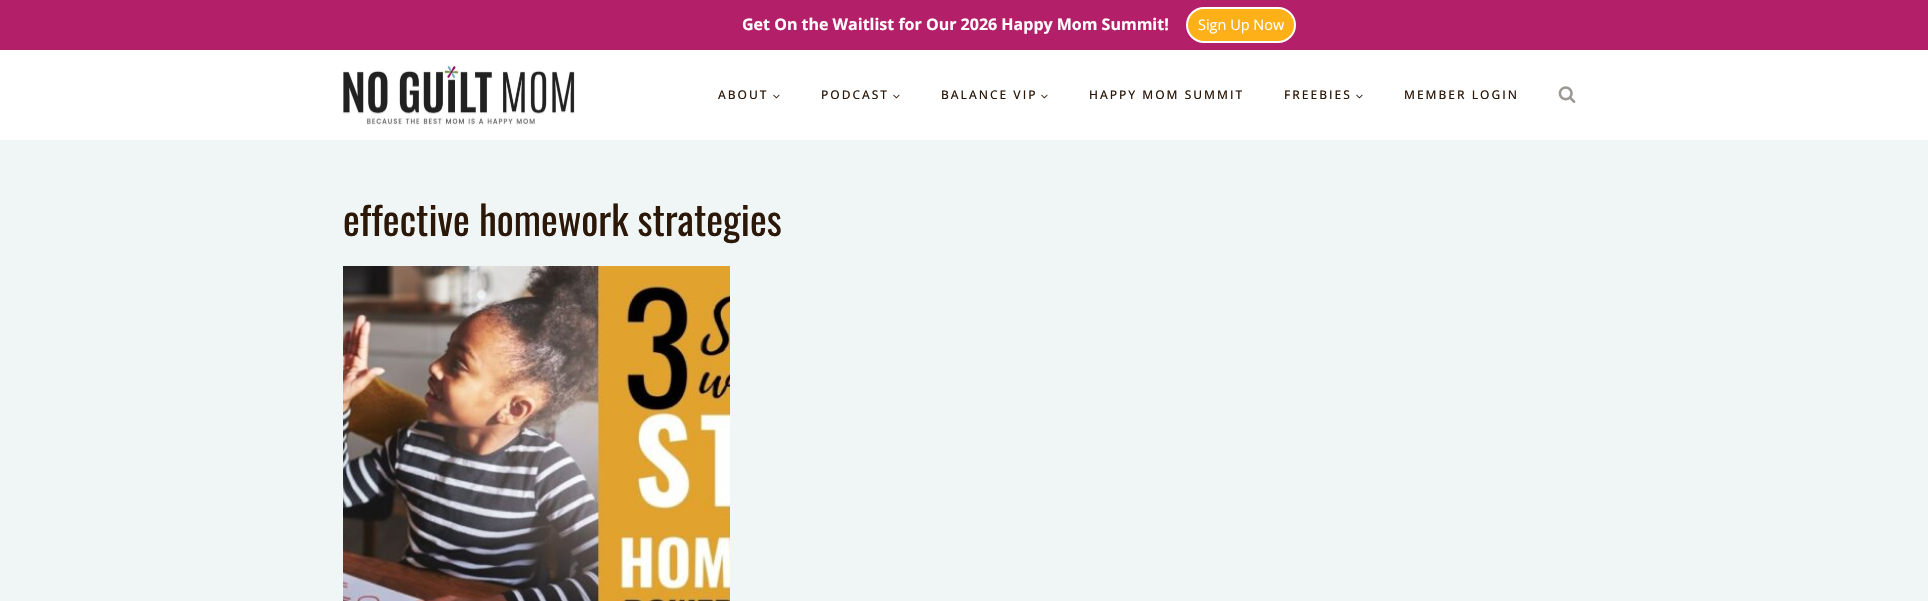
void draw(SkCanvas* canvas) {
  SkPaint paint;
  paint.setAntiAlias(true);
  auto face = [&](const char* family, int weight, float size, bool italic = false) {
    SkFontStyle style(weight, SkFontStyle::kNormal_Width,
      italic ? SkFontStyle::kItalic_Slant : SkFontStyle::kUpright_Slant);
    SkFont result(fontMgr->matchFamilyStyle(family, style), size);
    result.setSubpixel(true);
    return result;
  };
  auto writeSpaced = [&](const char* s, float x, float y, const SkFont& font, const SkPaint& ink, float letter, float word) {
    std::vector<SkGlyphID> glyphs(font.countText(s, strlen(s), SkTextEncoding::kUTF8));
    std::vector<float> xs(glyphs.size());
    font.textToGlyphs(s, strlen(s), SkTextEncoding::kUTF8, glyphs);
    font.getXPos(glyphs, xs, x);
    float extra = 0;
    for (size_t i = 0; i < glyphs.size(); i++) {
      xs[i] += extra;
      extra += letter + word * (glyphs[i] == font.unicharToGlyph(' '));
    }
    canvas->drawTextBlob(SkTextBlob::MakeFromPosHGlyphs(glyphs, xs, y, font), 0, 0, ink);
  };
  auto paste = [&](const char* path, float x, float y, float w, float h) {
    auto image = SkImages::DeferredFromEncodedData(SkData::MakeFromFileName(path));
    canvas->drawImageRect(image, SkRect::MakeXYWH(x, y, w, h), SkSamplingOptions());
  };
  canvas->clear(0xfff0f6f5);
  paint.setColor(0xffffffff);
  canvas->drawRect(SkRect::MakeXYWH(0, 50, 1928, 90), paint);
  paint.setColor(0xffb31f69);
  canvas->drawRect(SkRect::MakeXYWH(0, 0, 1928, 50), paint);
  paint.setColor(0xfffdb018);
  canvas->drawRoundRect(SkRect::MakeXYWH(1187, 8, 108, 34), 17, 17, paint);
  paint.setStroke(true);
  paint.setStrokeWidth(2);
  paint.setColor(0xffffffff);
  canvas->drawRoundRect(SkRect::MakeXYWH(1187, 8, 108, 34), 17, 17, paint);
  paste("img/1.png", 343, 65, 232, 60);
  paste("img/2.png", 773, 94, 7, 5);
  paste("img/2.png", 893, 94, 7, 5);
  paste("img/2.png", 1041, 94, 7, 5);
  paste("img/2.png", 1356, 94, 7, 5);
  paste("img/3.png", 1558, 86, 18, 17);
  paste("img/4.png", 343, 266, 387, 335);
  auto f0 = face("Open Sans", 700, 16);
  paint.setStroke(false);
  canvas->drawString("Get On the Waitlist for Our 2026 Happy Mom Summit!", 742, 30, f0, paint);
  auto f1 = face("Open Sans", 400, 14.5f);
  canvas->drawString("Sign Up Now", 1198, 30, f1, paint);
  auto f2 = face("Open Sans", 500, 12);
  paint.setColor(0xff2c1809);
  {
    const struct { const char* s; float x, y; } items[] = {
      {"ABOUT", 718, 99},
      {"PODCAST", 821, 99},
      {"BALANCE VIP", 941, 99},
      {"HAPPY MOM SUMMIT", 1089, 99},
      {"FREEBIES", 1284, 99},
      {"MEMBER LOGIN", 1404, 99},
    };
    for (auto [s, x, y] : items) {
      writeSpaced(s, x, y, f2, paint, 2, 0);
    }
  }
  auto f3 = face("Oswald", 400, 40);
  canvas->drawString("effective homework strategies", 343, 236, f3, paint);
}
